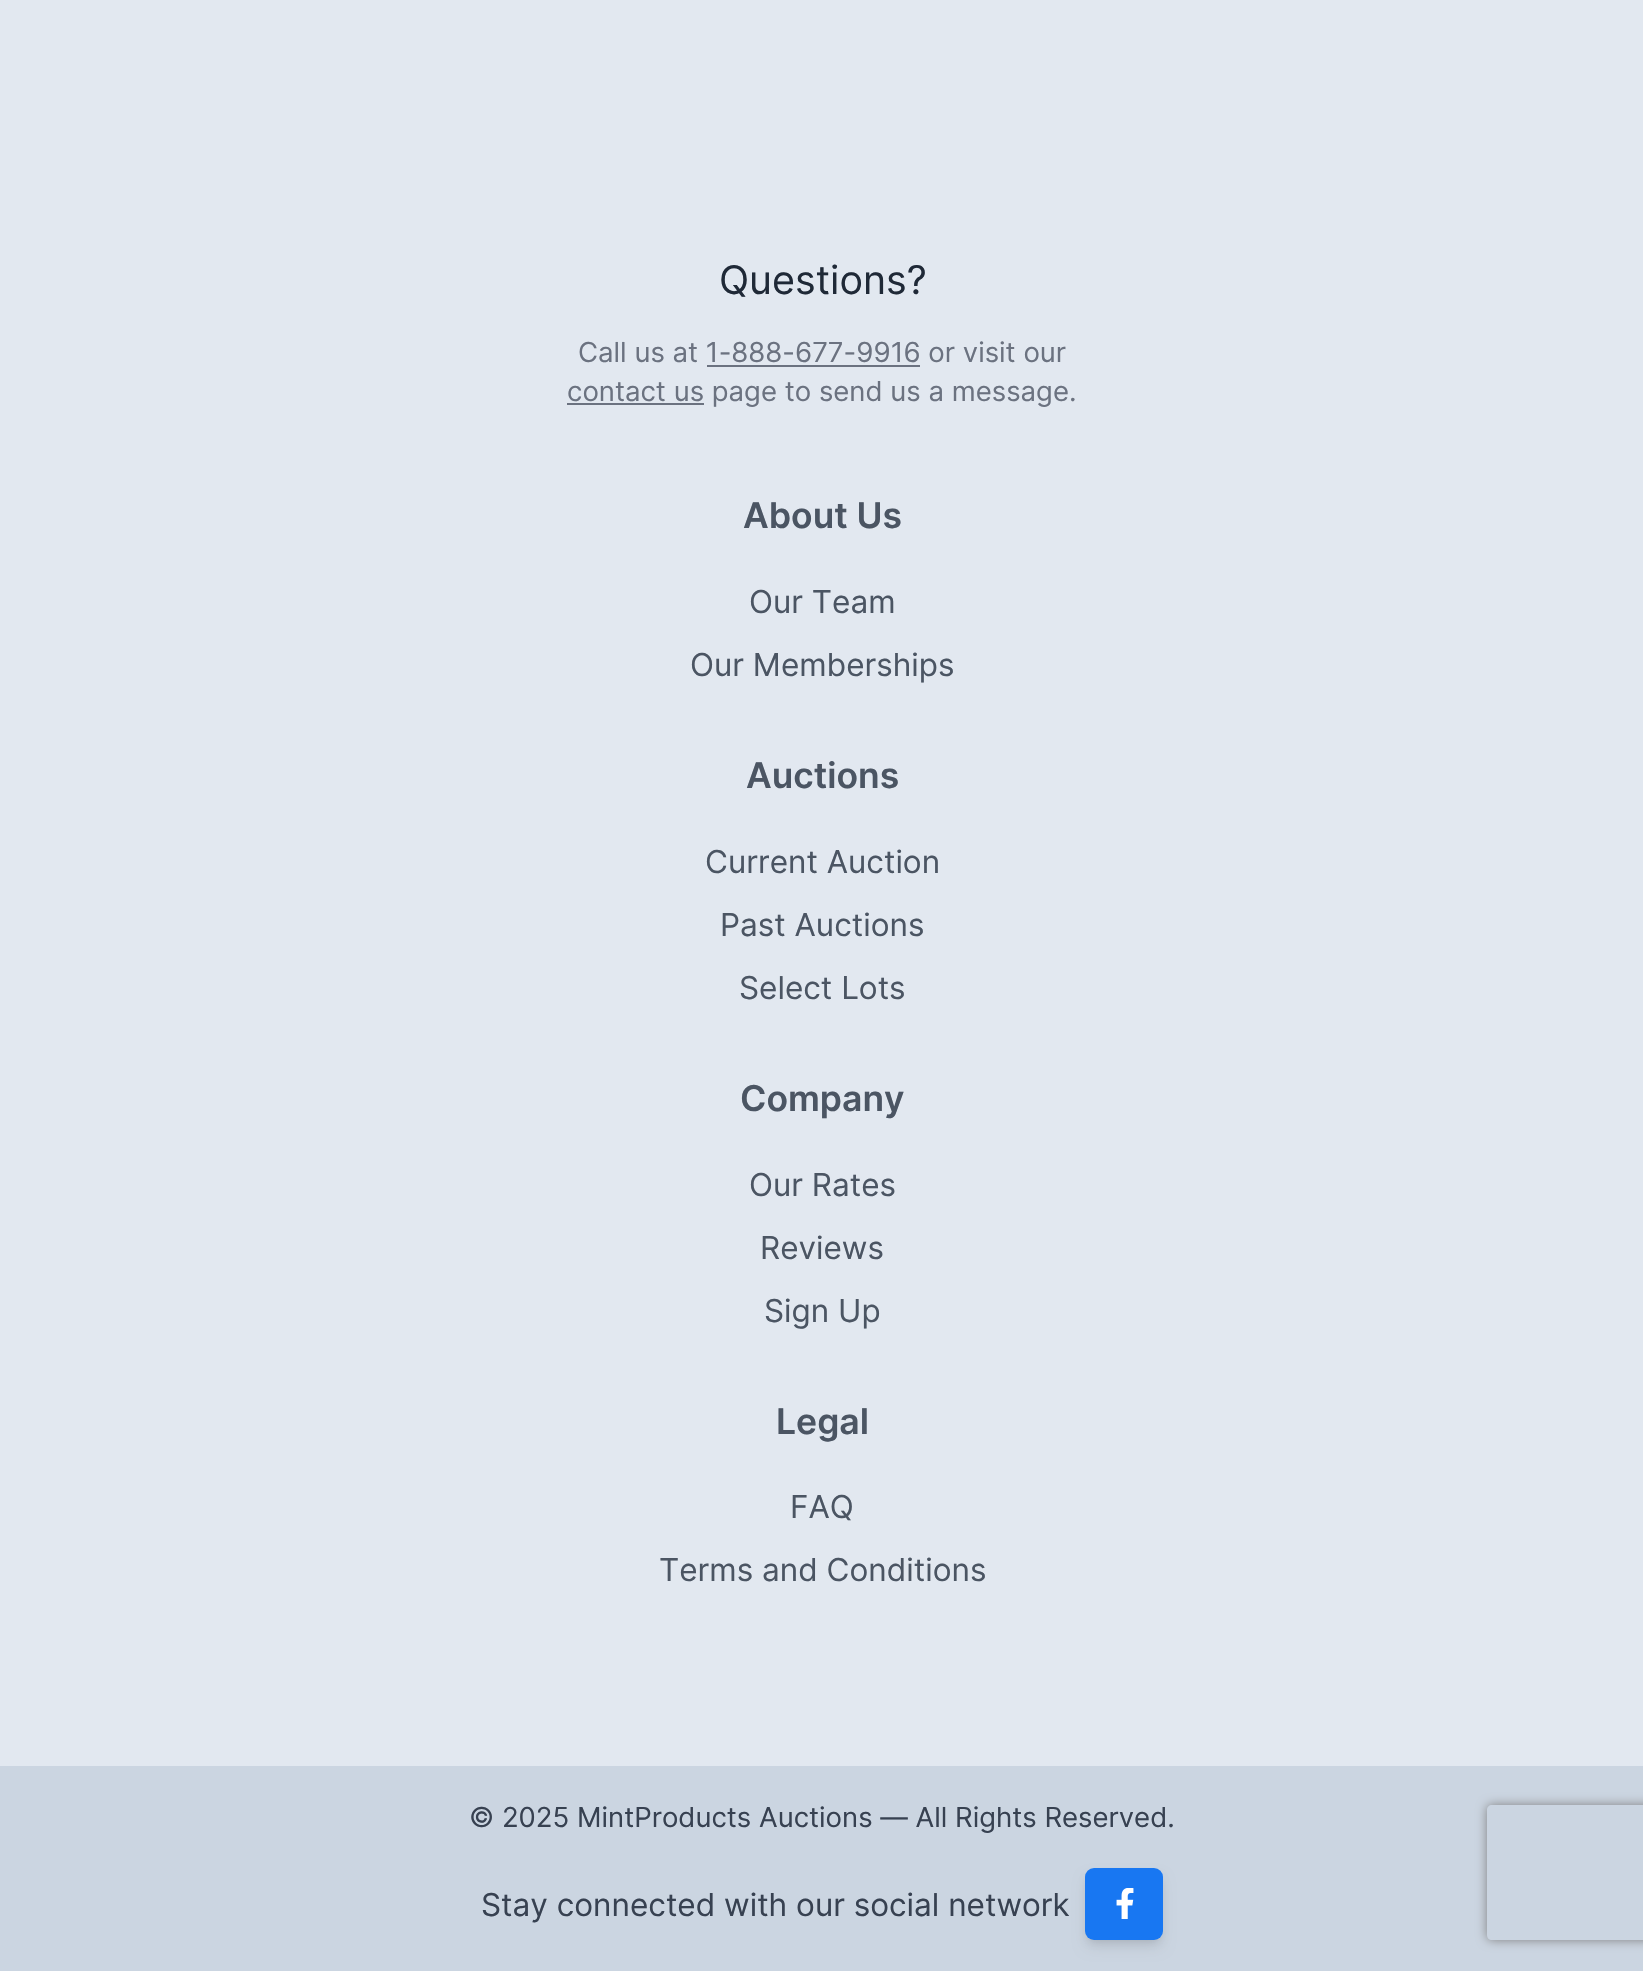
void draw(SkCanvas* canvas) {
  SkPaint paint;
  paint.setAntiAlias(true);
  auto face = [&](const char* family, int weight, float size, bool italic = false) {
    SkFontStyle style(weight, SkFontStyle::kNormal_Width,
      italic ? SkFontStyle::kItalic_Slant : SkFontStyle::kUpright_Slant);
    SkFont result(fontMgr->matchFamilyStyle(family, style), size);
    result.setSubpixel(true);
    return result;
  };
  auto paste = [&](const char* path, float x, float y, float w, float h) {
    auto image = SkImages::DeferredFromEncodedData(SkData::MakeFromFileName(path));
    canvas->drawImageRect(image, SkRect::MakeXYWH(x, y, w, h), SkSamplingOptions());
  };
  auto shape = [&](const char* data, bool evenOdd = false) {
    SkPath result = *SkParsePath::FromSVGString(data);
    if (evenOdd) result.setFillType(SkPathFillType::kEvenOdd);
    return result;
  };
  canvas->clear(0xffe2e8f0);
  {
    const struct { float x, y, w, h; SkColor color; } items[] = {
      {707, 365, 213, 2, 0xff6b7280},
      {567, 403, 137, 2, 0xff6b7280},
      {0, 1766, 1643, 205, 0xffcbd5e1},
    };
    for (auto [x, y, w, h, color] : items) {
      paint.setColor(color);
      canvas->drawRect(SkRect::MakeXYWH(x, y, w, h), paint);
    }
  }
  paint.setColor(0x1a000000);
  paint.setMaskFilter(SkMaskFilter::MakeBlur(kNormal_SkBlurStyle, 4.5f));
  canvas->drawRoundRect(SkRect::MakeXYWH(1089, 1877, 70, 63), 3, 3, paint);
  paint.setMaskFilter(nullptr);
  paint.setMaskFilter(SkMaskFilter::MakeBlur(kNormal_SkBlurStyle, 7));
  canvas->drawRoundRect(SkRect::MakeXYWH(1087, 1879, 74, 67), 6, 6, paint);
  paint.setMaskFilter(nullptr);
  paint.setColor(0xff1877f2);
  canvas->drawRoundRect(SkRect::MakeXYWH(1085, 1868, 78, 72), 9, 9, paint);
  paste("img/1.png", 1116, 1888, 18, 31);
  canvas->save();
  canvas->clipPath(shape("M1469 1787H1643V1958H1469ZM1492 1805H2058C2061 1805 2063 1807 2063 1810V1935C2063 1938 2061 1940 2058 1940H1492C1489 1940 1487 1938 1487 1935V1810C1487 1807 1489 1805 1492 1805Z", true), true);
  paint.setColor(0xff808080);
  paint.setMaskFilter(SkMaskFilter::MakeBlur(kNormal_SkBlurStyle, 5.5f));
  canvas->drawRoundRect(SkRect::MakeXYWH(1487, 1805, 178, 135), 5, 5, paint);
  paint.setMaskFilter(nullptr);
  canvas->restore();
  auto f0 = face("Inter", 400, 39.5f);
  paint.setColor(0xff1f2937);
  canvas->drawString("Questions?", 719, 294, f0, paint);
  auto f1 = face("Inter", 400, 27.55f);
  paint.setColor(0xff6b7280);
  canvas->drawString("Call us at 1-888-677-9916 or visit our", 578, 362, f1, paint);
  canvas->drawString("contact us page to send us a message.", 567, 401, f1, paint);
  auto f2 = face("Inter", 600, 35.5f);
  paint.setColor(0xff4b5563);
  canvas->drawString("About Us", 743, 528, f2, paint);
  auto f3 = face("Inter", 400, 31.5f);
  canvas->drawString("Our Team", 749, 613, f3, paint);
  canvas->drawString("Our Memberships", 690, 676, f3, paint);
  canvas->drawString("Auctions", 746, 788, f2, paint);
  {
    const struct { const char* s; float x, y; } items[] = {
      {"Current Auction", 705, 873},
      {"Past Auctions", 720, 936},
      {"Select Lots", 739, 999},
    };
    for (auto [s, x, y] : items) {
      canvas->drawString(s, x, y, f3, paint);
    }
  }
  canvas->drawString("Company", 740, 1111, f2, paint);
  {
    const struct { const char* s; float x, y; } items[] = {
      {"Our Rates", 749, 1196},
      {"Reviews", 760, 1259},
      {"Sign Up", 764, 1322},
    };
    for (auto [s, x, y] : items) {
      canvas->drawString(s, x, y, f3, paint);
    }
  }
  canvas->drawString("Legal", 776, 1434, f2, paint);
  canvas->drawString("FAQ", 790, 1518, f3, paint);
  canvas->drawString("Terms and Conditions", 659, 1581, f3, paint);
  paint.setColor(0xff374151);
  canvas->drawString("© 2025 MintProducts Auctions — All Rights Reserved.", 469, 1827, f1, paint);
  canvas->drawString("Stay connected with our social network", 481, 1916, f3, paint);
}
